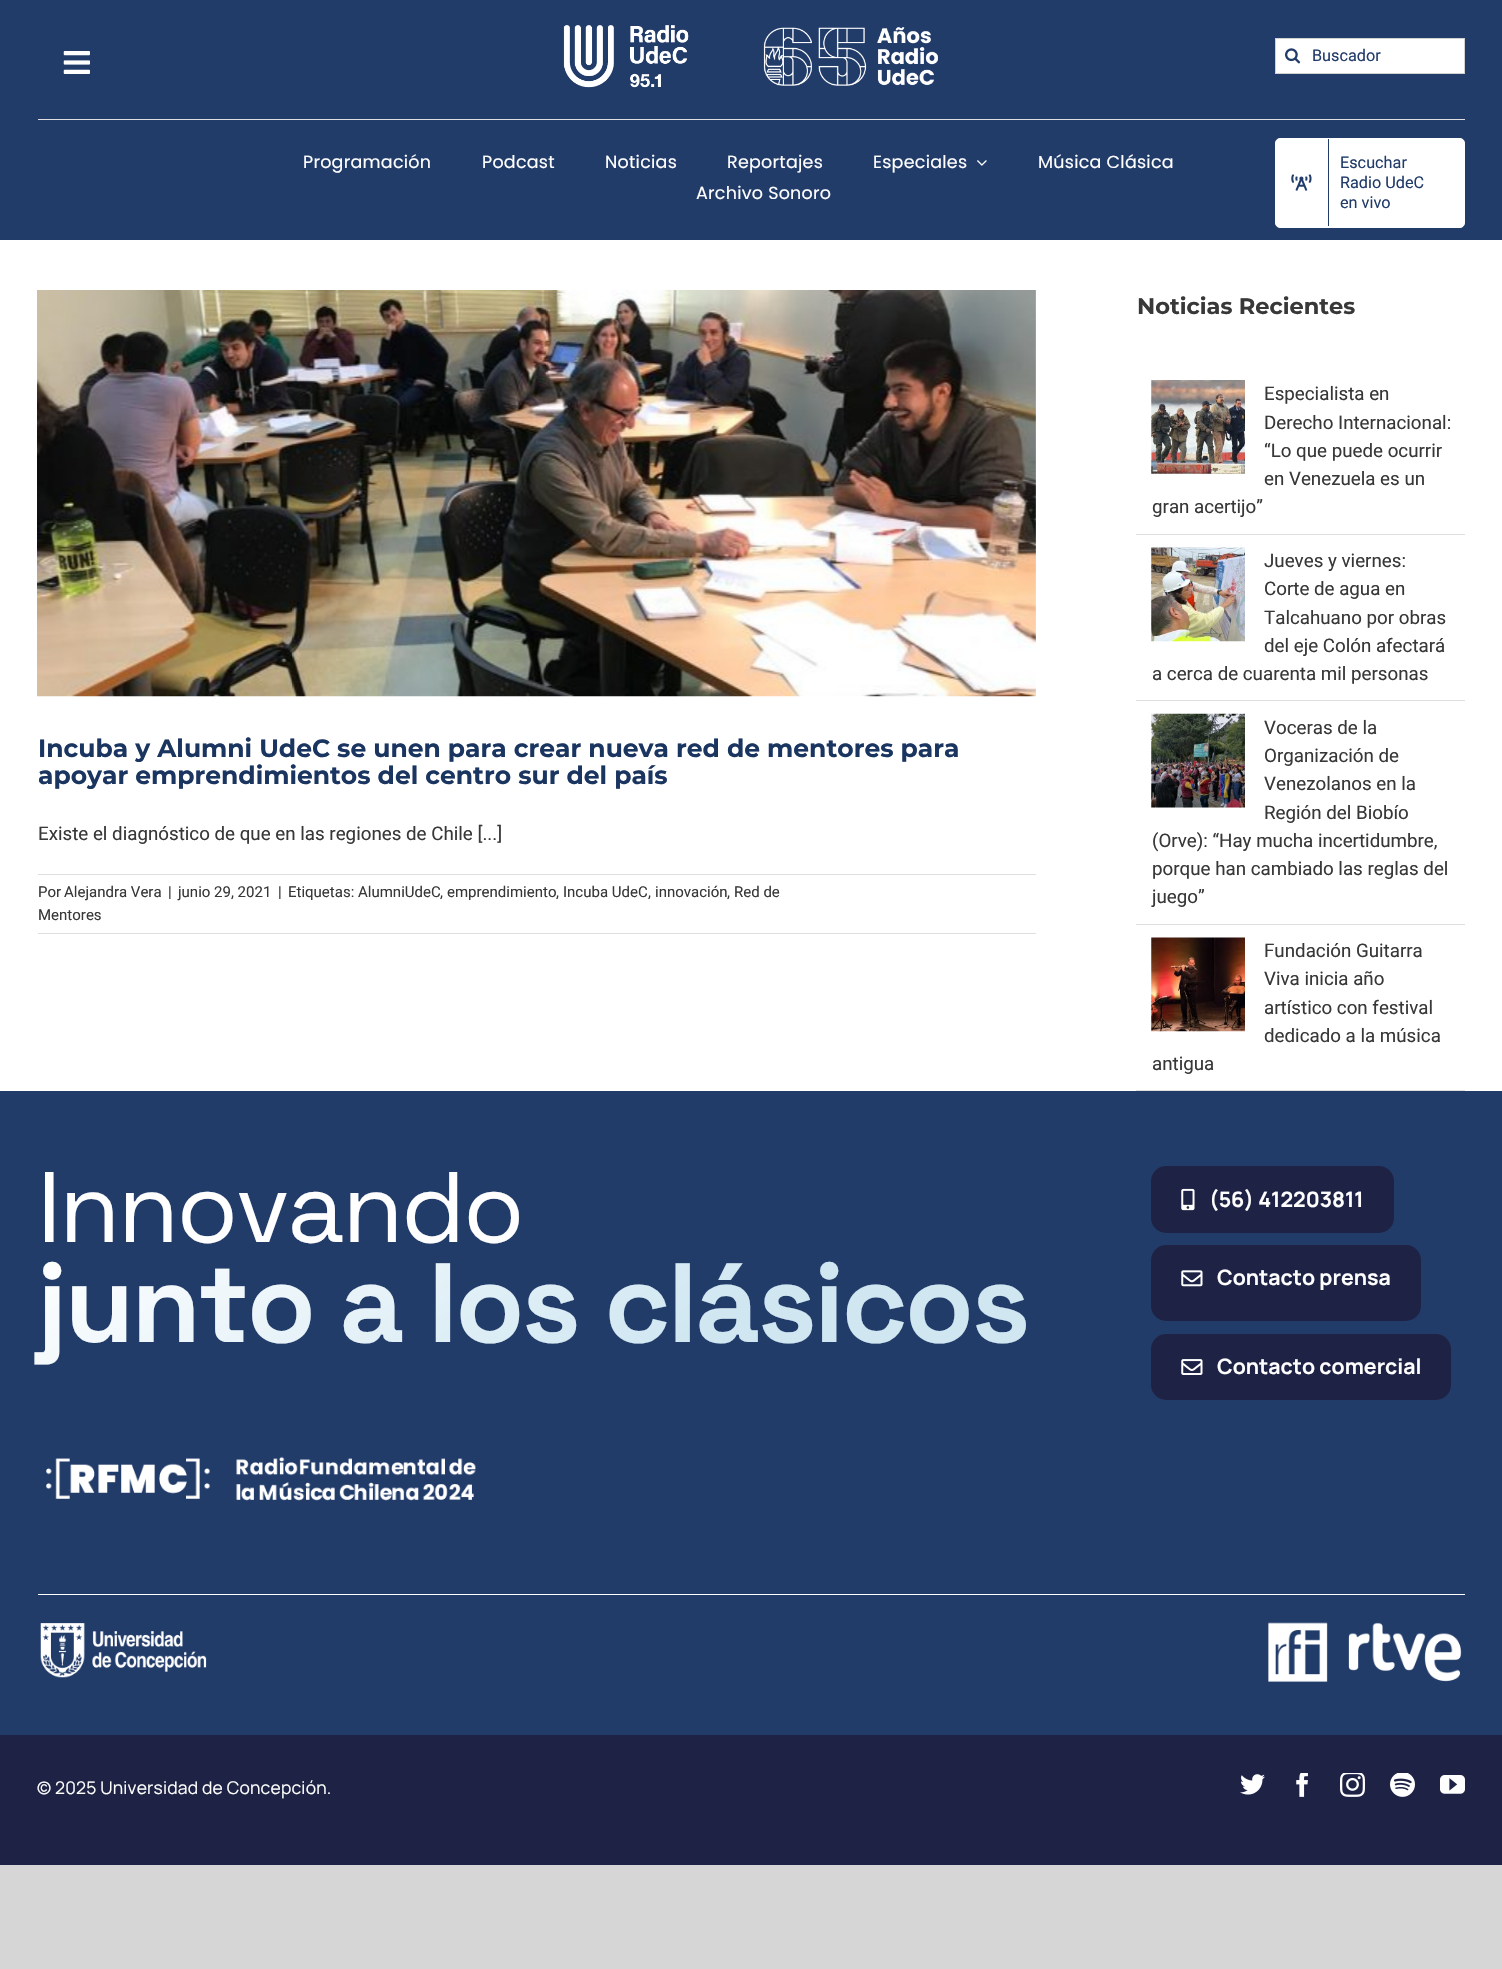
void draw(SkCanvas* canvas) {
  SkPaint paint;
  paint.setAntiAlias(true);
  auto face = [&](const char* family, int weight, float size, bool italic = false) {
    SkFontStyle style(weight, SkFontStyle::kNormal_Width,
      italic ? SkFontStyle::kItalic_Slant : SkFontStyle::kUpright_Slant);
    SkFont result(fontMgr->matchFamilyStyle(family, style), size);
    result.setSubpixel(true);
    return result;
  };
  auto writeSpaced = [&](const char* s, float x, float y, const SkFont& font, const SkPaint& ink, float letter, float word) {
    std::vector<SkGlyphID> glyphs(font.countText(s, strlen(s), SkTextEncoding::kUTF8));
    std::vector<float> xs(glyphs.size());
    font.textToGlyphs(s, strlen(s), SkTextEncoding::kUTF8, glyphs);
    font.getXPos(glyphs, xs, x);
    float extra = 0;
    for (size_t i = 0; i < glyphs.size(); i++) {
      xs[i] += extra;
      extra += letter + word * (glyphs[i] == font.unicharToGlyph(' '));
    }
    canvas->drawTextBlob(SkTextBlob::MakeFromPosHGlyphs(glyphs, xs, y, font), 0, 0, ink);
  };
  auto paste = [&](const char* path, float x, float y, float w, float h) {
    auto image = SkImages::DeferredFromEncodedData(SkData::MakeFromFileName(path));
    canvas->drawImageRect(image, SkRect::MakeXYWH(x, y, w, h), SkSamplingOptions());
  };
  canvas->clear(0xffd7d6d6);
  {
    const struct { float x, y, w, h; SkColor color; } items[] = {
      {0, 240, 1502, 851, 0xffffffff},
      {0, 0, 1502, 240, 0xff223c6a},
      {38, 119, 1427, 1, 0xffe0dede},
    };
    for (auto [x, y, w, h, color] : items) {
      paint.setColor(color);
      canvas->drawRect(SkRect::MakeXYWH(x, y, w, h), paint);
    }
  }
  paste("img/1.png", 63, 51, 27, 23);
  paste("img/2.png", 563, 25, 126, 63);
  paste("img/3.png", 763, 27, 175, 59);
  paint.setColor(0xffffffff);
  canvas->drawRect(SkRect::MakeXYWH(1275.5f, 38.5f, 189, 35), paint);
  paint.setStroke(true);
  paint.setStrokeWidth(1);
  paint.setColor(0xffd2d2d2);
  canvas->drawRect(SkRect::MakeXYWH(1275.5f, 38.5f, 189, 35), paint);
  paste("img/4.png", 1285, 48, 16, 16);
  paste("img/5.png", 977, 160, 10, 6);
  paint.setStroke(false);
  paint.setColor(0xffffffff);
  canvas->drawRoundRect(SkRect::MakeXYWH(1275.5f, 138.5f, 189, 89), 4.5f, 4.5f, paint);
  paint.setStroke(true);
  canvas->drawRoundRect(SkRect::MakeXYWH(1275.5f, 138.5f, 189, 89), 4.5f, 4.5f, paint);
  paint.setStroke(false);
  paint.setColor(0xff223c6a);
  canvas->drawRect(SkRect::MakeXYWH(1328, 139, 1, 87), paint);
  paste("img/6.png", 1291, 174, 21, 17);
  paste("img/7.png", 37, 290, 999, 407);
  {
    const struct { float x, y, w, h; SkColor color; } items[] = {
      {38, 874, 998, 1, 0xffe0dede},
      {38, 933, 998, 1, 0xffe0dede},
      {1136, 534, 329, 1, 0xffe0dede},
    };
    for (auto [x, y, w, h, color] : items) {
      paint.setColor(color);
      canvas->drawRect(SkRect::MakeXYWH(x, y, w, h), paint);
    }
  }
  paste("img/8.png", 1151, 380, 94, 94);
  canvas->drawRect(SkRect::MakeXYWH(1136, 700, 329, 1), paint);
  paste("img/9.png", 1151, 547, 94, 95);
  canvas->drawRect(SkRect::MakeXYWH(1136, 924, 329, 1), paint);
  paste("img/10.png", 1151, 713, 94, 95);
  canvas->drawRect(SkRect::MakeXYWH(1136, 1090, 329, 1), paint);
  paste("img/11.png", 1151, 937, 94, 95);
  paint.setColor(0xff223c6a);
  canvas->drawRect(SkRect::MakeXYWH(0, 1091, 1502, 644), paint);
  paste("img/12.png", 46, 1456, 430, 45);
  paint.setColor(0xff1e2345);
  canvas->drawRoundRect(SkRect::MakeXYWH(1151, 1166, 243, 67), 15, 15, paint);
  paste("img/13.png", 1181, 1188, 14, 23);
  canvas->drawRoundRect(SkRect::MakeXYWH(1151, 1245, 270, 76), 15, 15, paint);
  paste("img/14.png", 1181, 1270, 22, 17);
  canvas->drawRoundRect(SkRect::MakeXYWH(1151, 1334, 300, 66), 15, 15, paint);
  paste("img/15.png", 1181, 1359, 22, 16);
  paint.setColor(0xffffffff);
  canvas->drawRect(SkRect::MakeXYWH(38, 1594, 1427, 1), paint);
  paste("img/16.png", 40, 1623, 167, 55);
  paste("img/17.png", 1268, 1622, 194, 60);
  paint.setColor(0xff1e2345);
  canvas->drawRect(SkRect::MakeXYWH(0, 1735, 1502, 130), paint);
  paste("img/18.png", 1240, 1774, 25, 21);
  paste("img/19.png", 1296, 1773, 12, 24);
  paste("img/20.png", 1340, 1773, 25, 24);
  paste("img/21.png", 1390, 1773, 25, 24);
  paste("img/22.png", 1440, 1775, 25, 19);
  auto f0 = face("Roboto", 400, 16.25f);
  paint.setColor(0xff223c6a);
  canvas->drawString("Buscador", 1312, 61, f0, paint);
  auto f1 = face("Poppins", 400, 17.5f);
  paint.setColor(0xffffffff);
  {
    const struct { const char* s; float x, y; } items[] = {
      {"Programación", 303, 168},
      {"Podcast", 482, 168},
      {"Noticias", 605, 168},
      {"Reportajes", 727, 168},
      {"Especiales", 873, 168},
      {"Música Clásica", 1038, 168},
      {"Archivo Sonoro", 696, 199},
    };
    for (auto [s, x, y] : items) {
      writeSpaced(s, x, y, f1, paint, 0.25f, 0);
    }
  }
  paint.setColor(0xff223c6a);
  {
    const struct { const char* s; float x, y; } items[] = {
      {"Escuchar", 1340, 168},
      {"Radio UdeC", 1340, 188},
      {"en vivo", 1340, 208},
    };
    for (auto [s, x, y] : items) {
      canvas->drawString(s, x, y, f0, paint);
    }
  }
  auto f2 = face("Montserrat", 700, 25);
  paint.setColor(0xff1b3561);
  canvas->drawString("Incuba y Alumni UdeC se unen para crear nueva red de mentores para", 38, 757, f2, paint);
  canvas->drawString("apoyar emprendimientos del centro sur del país", 38, 784, f2, paint);
  auto f3 = face("Roboto", 400, 18.75f);
  paint.setColor(0xff383838);
  canvas->drawString("Existe el diagnóstico de que en las regiones de Chile [...]", 38, 840, f3, paint);
  auto f4 = face("Roboto", 400, 15);
  {
    const struct { const char* s; float x, y; } items[] = {
      {"Por", 38, 897},
      {"Alejandra Vera", 64, 897},
      {"|", 168, 897},
      {"junio 29, 2021", 178, 897},
      {"|", 278, 897},
      {"Etiquetas:", 288, 897},
      {"AlumniUdeC", 358, 897},
      {",", 440, 897},
      {"emprendimiento", 447, 897},
      {",", 556, 897},
      {"Incuba UdeC", 563, 897},
      {",", 648, 897},
      {"innovación", 655, 897},
      {",", 727, 897},
      {"Red de", 734, 897},
      {"Mentores", 38, 920},
    };
    for (auto [s, x, y] : items) {
      canvas->drawString(s, x, y, f4, paint);
    }
  }
  auto f5 = face("Montserrat", 700, 22.5f);
  canvas->drawString("Noticias Recientes", 1137, 314, f5, paint);
  {
    const struct { const char* s; float x, y; } items[] = {
      {"Especialista en", 1264, 400},
      {"Derecho Internacional:", 1264, 429},
      {"“Lo que puede ocurrir", 1264, 457},
      {"en Venezuela es un", 1264, 485},
      {"gran acertijo”", 1152, 513},
      {"Jueves y viernes:", 1264, 567},
      {"Corte de agua en", 1264, 595},
      {"Talcahuano por obras", 1264, 624},
      {"del eje Colón afectará", 1264, 652},
      {"a cerca de cuarenta mil personas", 1152, 680},
      {"Voceras de la", 1264, 734},
      {"Organización de", 1264, 762},
      {"Venezolanos en la", 1264, 790},
      {"Región del Biobío", 1264, 819},
      {"(Orve): “Hay mucha incertidumbre,", 1152, 847},
      {"porque han cambiado las reglas del", 1152, 875},
      {"juego”", 1152, 903},
      {"Fundación Guitarra", 1264, 957},
      {"Viva inicia año", 1264, 985},
      {"artístico con festival", 1264, 1014},
      {"dedicado a la música", 1264, 1042},
      {"antigua", 1152, 1070},
    };
    for (auto [s, x, y] : items) {
      canvas->drawString(s, x, y, f3, paint);
    }
  }
  auto f6 = face("Space Grotesk", 400, 100);
  paint.setColor(0xffffffff);
  writeSpaced("Innovando", 37, 1242, f6, paint, -2.5f, 0);
  auto f7 = face("Space Grotesk", 700, 112.5f);
  {
    const SkColor colors[] = {0xffffffff, 0xffd0e7f2};
    const float stops[] = {0, 0.64f};
    const SkPoint ends[] = {{392, 1025}, {739, 1581}};
    paint.setShader(SkGradientShader::MakeLinear(ends, colors, stops, 2, SkTileMode::kClamp));
    paint.setAlpha(255);
  }
  writeSpaced("junto a los clásicos", 37, 1342, f7, paint, -2.5f, 0);
  auto f8 = face("Manrope", 700, 21.25f);
  paint.setShader(nullptr);
  paint.setColor(0xffffffff);
  {
    const struct { const char* s; float x, y; } items[] = {
      {"(56) 412203811", 1209, 1207},
      {"Contacto prensa", 1217, 1285},
      {"Contacto comercial", 1217, 1374},
    };
    for (auto [s, x, y] : items) {
      canvas->drawString(s, x, y, f8, paint);
    }
  }
  auto f9 = face("Manrope", 400, 17.5f);
  writeSpaced("© 2025 Universidad de Concepción.", 37, 1794, f9, paint, 0.2f, 0);
}
